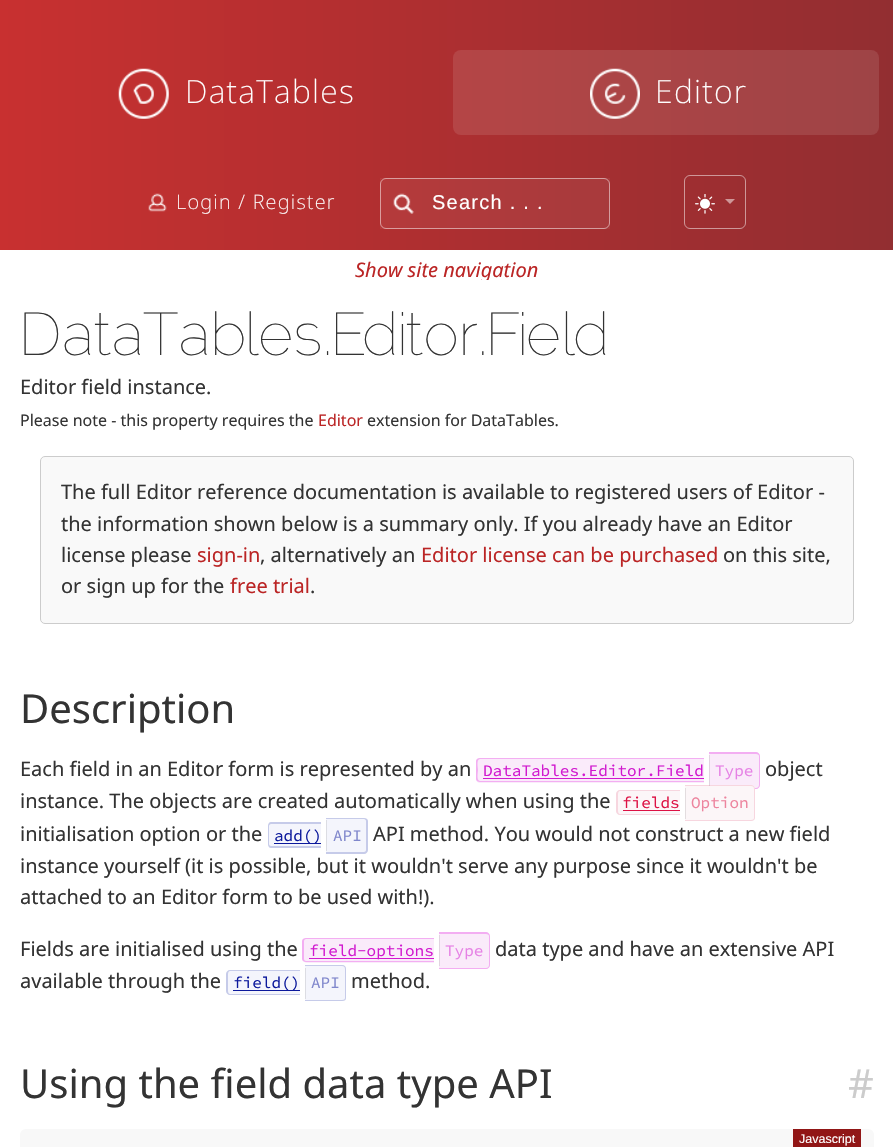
void draw(SkCanvas* canvas) {
  SkPaint paint;
  paint.setAntiAlias(true);
  auto face = [&](const char* family, int weight, float size, bool italic = false) {
    SkFontStyle style(weight, SkFontStyle::kNormal_Width,
      italic ? SkFontStyle::kItalic_Slant : SkFontStyle::kUpright_Slant);
    SkFont result(fontMgr->matchFamilyStyle(family, style), size);
    result.setSubpixel(true);
    return result;
  };
  auto writeSpaced = [&](const char* s, float x, float y, const SkFont& font, const SkPaint& ink, float letter, float word) {
    std::vector<SkGlyphID> glyphs(font.countText(s, strlen(s), SkTextEncoding::kUTF8));
    std::vector<float> xs(glyphs.size());
    font.textToGlyphs(s, strlen(s), SkTextEncoding::kUTF8, glyphs);
    font.getXPos(glyphs, xs, x);
    float extra = 0;
    for (size_t i = 0; i < glyphs.size(); i++) {
      xs[i] += extra;
      extra += letter + word * (glyphs[i] == font.unicharToGlyph(' '));
    }
    canvas->drawTextBlob(SkTextBlob::MakeFromPosHGlyphs(glyphs, xs, y, font), 0, 0, ink);
  };
  auto paste = [&](const char* path, float x, float y, float w, float h) {
    auto image = SkImages::DeferredFromEncodedData(SkData::MakeFromFileName(path));
    canvas->drawImageRect(image, SkRect::MakeXYWH(x, y, w, h), SkSamplingOptions());
  };
  auto shape = [&](const char* data, bool evenOdd = false) {
    SkPath result = *SkParsePath::FromSVGString(data);
    if (evenOdd) result.setFillType(SkPathFillType::kEvenOdd);
    return result;
  };
  canvas->clear(0xffffffff);
  {
    const SkColor colors[] = {0xffc83030, 0xff922e31};
    const float stops[] = {0, 1};
    const SkPoint ends[] = {{0, 125}, {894, 125}};
    paint.setShader(SkGradientShader::MakeLinear(ends, colors, stops, 2, SkTileMode::kClamp));
    paint.setAlpha(255);
  }
  canvas->drawRect(SkRect::MakeXYWH(0, 0, 893, 250), paint);
  paste("img/1.png", 118, 68, 51, 51);
  paint.setShader(nullptr);
  paint.setColor(0x1affffff);
  canvas->drawRoundRect(SkRect::MakeXYWH(453, 50, 426, 85), 8, 8, paint);
  paste("img/2.png", 590, 68, 50, 51);
  paste("img/3.png", 148, 193, 19, 19);
  paint.setColor(0x0dffffff);
  canvas->drawRect(SkRect::MakeXYWH(380, 178, 230, 51), paint);
  paste("img/4.png", 393, 193, 21, 21);
  paint.setStroke(true);
  paint.setStrokeWidth(1);
  paint.setColor(0x80ffffff);
  canvas->drawRoundRect(SkRect::MakeXYWH(380.5f, 178.5f, 229, 50), 5.5f, 5.5f, paint);
  canvas->drawRoundRect(SkRect::MakeXYWH(684.5f, 175.5f, 61, 53), 5.5f, 5.5f, paint);
  paste("img/5.png", 695, 194, 20, 20);
  paint.setStroke(false);
  paint.setColor(0xffce9798);
  canvas->drawPath(shape("M725 199H735L730 204Z"), paint);
  paint.setColor(0xfff9f9f9);
  canvas->drawRoundRect(SkRect::MakeXYWH(40.5f, 456.5f, 813, 167), 4.5f, 4.5f, paint);
  paint.setStroke(true);
  paint.setColor(0xffcccccc);
  canvas->drawRoundRect(SkRect::MakeXYWH(40.5f, 456.5f, 813, 167), 4.5f, 4.5f, paint);
  paint.setStroke(false);
  paint.setColor(0xfffaebfa);
  canvas->drawPath(shape("M480 758H704V783H480C478 783 476 781 476 779V762C476 760 478 758 480 758Z"), paint);
  paint.setColor(0xfff3aef2);
  canvas->drawPath(shape("M480 758H704V782H480C478 782 476 781 476 779V761C476 759 478 758 480 758ZM480 759H704V781H480C476 781 478 772 478 770C478 768 476 759 480 759Z", true), paint);
  paint.setColor(0xfffaebfa);
  canvas->drawPath(shape("M709 753H756C758 753 760 755 760 757V785C760 787 758 789 756 789H709Z"), paint);
  paint.setColor(0xfff3aef2);
  canvas->drawPath(shape("M709 752H756C758 752 760 754 760 756V785C760 787 758 789 756 789H709ZM709 754H756C758 754 759 755 759 756V785C759 786 758 788 756 788H709Z", true), paint);
  paint.setColor(0xffd119cf);
  canvas->drawRect(SkRect::MakeXYWH(483, 778, 221, 1), paint);
  paint.setColor(0xfffcf6f8);
  canvas->drawPath(shape("M685 785H751C753 785 755 787 755 789V817C755 819 753 821 751 821H685Z"), paint);
  paint.setColor(0xfff7d6df);
  canvas->drawPath(shape("M685 785H751C753 785 755 787 755 789V818C755 820 753 821 751 821H685ZM685 786H751C753 786 754 787 754 789V818C754 819 753 820 751 820H685Z", true), paint);
  paint.setColor(0x1a000000);
  canvas->drawRect(SkRect::MakeXYWH(709, 755, 1, 31), paint);
  paint.setColor(0xfffcf6f8);
  canvas->drawPath(shape("M620 790H680V815H620C618 815 616 813 616 811V794C616 792 618 790 620 790Z"), paint);
  paint.setColor(0xfff7d6df);
  canvas->drawPath(shape("M620 790H680V815H620C618 815 616 813 616 811V794C616 792 618 790 620 790ZM620 791H680V814H620C619 814 618 813 618 811V794C618 792 619 791 620 791Z", true), paint);
  paint.setColor(0xffdd1144);
  canvas->drawRect(SkRect::MakeXYWH(623, 810, 57, 1), paint);
  paint.setColor(0xffe3dddf);
  canvas->drawRect(SkRect::MakeXYWH(685, 788, 1, 31), paint);
  paint.setColor(0xfff4f5fc);
  canvas->drawPath(shape("M272 823H321V848H272C270 848 268 846 268 844V827C268 825 270 823 272 823Z"), paint);
  paint.setColor(0xffc6cbe9);
  canvas->drawPath(shape("M271 822H321V848H271C269 848 268 846 268 844V826C268 824 269 822 271 822ZM271 824H321V846H271C270 846 269 845 269 844V826C269 825 270 824 271 824Z", true), paint);
  paint.setColor(0xfff4f5fc);
  canvas->drawPath(shape("M326 818H364C366 818 368 820 368 822V850C368 852 366 854 364 854H326Z"), paint);
  paint.setColor(0xffc6cbe9);
  canvas->drawPath(shape("M326 818H364C366 818 368 819 368 821V850C368 852 366 854 364 854H326ZM326 819H364C365 819 366 820 366 821V850C366 851 365 852 364 852H326Z", true), paint);
  paint.setColor(0xff0c199c);
  canvas->drawRect(SkRect::MakeXYWH(274, 843, 47, 1), paint);
  paint.setColor(0xffdcdde3);
  canvas->drawRect(SkRect::MakeXYWH(326, 820, 1, 31), paint);
  paint.setColor(0xfffaebfa);
  canvas->drawPath(shape("M307 938H434V963H307C305 963 303 961 303 959V942C303 940 305 938 307 938Z"), paint);
  paint.setColor(0xfff3aef2);
  canvas->drawPath(shape("M306 938H434V962H306C304 962 302 961 302 959V941C302 939 304 938 306 938ZM306 939H434V961H306C305 961 304 960 304 959V941C304 940 305 939 306 939Z", true), paint);
  paint.setColor(0xfffaebfa);
  canvas->drawPath(shape("M439 933H486C488 933 490 935 490 937V965C490 967 488 969 486 969H439Z"), paint);
  paint.setColor(0xfff3aef2);
  canvas->drawPath(shape("M439 932H486C488 932 490 934 490 936V965C490 967 488 969 486 969H439ZM439 934H486C488 934 489 935 489 936V965C489 966 488 968 486 968H439Z", true), paint);
  paint.setColor(0xffd119cf);
  canvas->drawRect(SkRect::MakeXYWH(309, 958, 125, 1), paint);
  paint.setColor(0xffe1d4e1);
  canvas->drawRect(SkRect::MakeXYWH(439, 935, 1, 31), paint);
  paint.setColor(0xfff4f5fc);
  canvas->drawPath(shape("M230 970H300V995H230C228 995 226 993 226 991V974C226 972 228 970 230 970Z"), paint);
  paint.setColor(0xffc6cbe9);
  canvas->drawPath(shape("M230 970H300V995H230C228 995 226 993 226 991V974C226 972 228 970 230 970ZM230 971H300V994H230C229 994 228 993 228 991V974C228 972 229 971 230 971Z", true), paint);
  paint.setColor(0xfff4f5fc);
  canvas->drawPath(shape("M305 965H342C344 965 346 967 346 969V997C346 999 344 1001 342 1001H305Z"), paint);
  paint.setColor(0xffc6cbe9);
  canvas->drawPath(shape("M305 965H342C345 965 346 967 346 969V998C346 1000 345 1001 342 1001H305ZM305 966H342C344 966 345 967 345 969V998C345 999 344 1000 342 1000H305Z", true), paint);
  paint.setColor(0xff0c199c);
  canvas->drawRect(SkRect::MakeXYWH(233, 990, 67, 1), paint);
  paint.setColor(0xffdcdde3);
  canvas->drawRect(SkRect::MakeXYWH(305, 968, 1, 31), paint);
  paint.setColor(0xfff8f8f8);
  canvas->drawRoundRect(SkRect::MakeXYWH(20, 1129, 854, 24), 6, 6, paint);
  paint.setColor(0xff911616);
  canvas->drawRect(SkRect::MakeXYWH(793, 1129, 68, 18), paint);
  auto f0 = face("Noto Sans", 200, 32);
  paint.setColor(0xffffffff);
  writeSpaced("DataTables", 185, 103, f0, paint, 1.25f, 0);
  writeSpaced("Editor", 655, 103, f0, paint, 1.25f, 0);
  auto f1 = face("Noto Sans", 200, 20);
  writeSpaced("Login / Register", 176, 209, f1, paint, 1.25f, 0);
  auto f2 = face("Liberation Sans", 400, 20);
  writeSpaced("Search . . .", 432, 209, f2, paint, 1.25f, 0);
  canvas->save();
  canvas->clipRect(SkRect::MakeXYWH(20, 250, 854, 30));
  auto f3 = face("Noto Sans", 400, 20, true);
  paint.setColor(0xffbb2525);
  canvas->drawString("Show site navigation", 355, 277, f3, paint);
  canvas->restore();
  auto f4 = face("Raleway", 100, 60);
  paint.setColor(0xff333333);
  writeSpaced("DataTables.Editor.Field", 20, 355, f4, paint, 1.25f, 0);
  auto f5 = face("Noto Sans", 400, 20);
  canvas->drawString("Editor field instance.", 20, 394, f5, paint);
  auto f6 = face("Noto Sans", 400, 16);
  canvas->drawString("Please note - this property requires the", 20, 426, f6, paint);
  paint.setColor(0xffbb2525);
  canvas->drawString("Editor", 318, 426, f6, paint);
  paint.setColor(0xff333333);
  canvas->drawString("extension for DataTables.", 367, 426, f6, paint);
  {
    const struct { const char* s; float x, y; } items[] = {
      {"The full Editor reference documentation is available to registered users of Editor -", 61, 499},
      {"the information shown below is a summary only. If you already have an Editor", 61, 531},
      {"license please", 61, 562},
    };
    for (auto [s, x, y] : items) {
      canvas->drawString(s, x, y, f5, paint);
    }
  }
  paint.setColor(0xffbb2525);
  canvas->drawString("sign-in", 197, 562, f5, paint);
  paint.setColor(0xff333333);
  canvas->drawString(", alternatively an", 260, 562, f5, paint);
  paint.setColor(0xffbb2525);
  canvas->drawString("Editor license can be purchased", 421, 562, f5, paint);
  paint.setColor(0xff333333);
  canvas->drawString("on this site,", 723, 562, f5, paint);
  canvas->drawString("or sign up for the", 61, 593, f5, paint);
  paint.setColor(0xffbb2525);
  canvas->drawString("free trial", 230, 593, f5, paint);
  paint.setColor(0xff333333);
  canvas->drawString(".", 310, 593, f5, paint);
  auto f7 = face("Noto Sans", 400, 40);
  canvas->drawString("Description", 20, 723, f7, paint);
  canvas->drawString("Each field in an Editor form is represented by an", 20, 776, f5, paint);
  auto f8 = face("Source Code Pro", 400, 16);
  paint.setColor(0xffd119cf);
  canvas->drawString("DataTables.Editor.Field", 483, 776, f8, paint);
  paint.setColor(0xffe682e5);
  canvas->drawString("Type", 715, 776, f8, paint);
  paint.setColor(0xff333333);
  canvas->drawString("object", 765, 776, f5, paint);
  canvas->drawString("instance. The objects are created automatically when using the", 20, 808, f5, paint);
  paint.setColor(0xffdd1144);
  canvas->drawString("fields", 622, 808, f8, paint);
  paint.setColor(0xffed849e);
  canvas->drawString("Option", 691, 808, f8, paint);
  paint.setColor(0xff333333);
  canvas->drawString("initialisation option or the", 20, 841, f5, paint);
  paint.setColor(0xff0c199c);
  canvas->drawString("add()", 274, 841, f8, paint);
  paint.setColor(0xff8087cc);
  canvas->drawString("API", 333, 841, f8, paint);
  paint.setColor(0xff333333);
  {
    const struct { const char* s; float x, y; } items[] = {
      {"API method. You would not construct a new field", 373, 841},
      {"instance yourself (it is possible, but it wouldn't serve any purpose since it wouldn't be", 20, 873},
      {"attached to an Editor form to be used with!).", 20, 904},
      {"Fields are initialised using the", 20, 956},
    };
    for (auto [s, x, y] : items) {
      canvas->drawString(s, x, y, f5, paint);
    }
  }
  paint.setColor(0xffd119cf);
  canvas->drawString("field-options", 309, 956, f8, paint);
  paint.setColor(0xffe682e5);
  canvas->drawString("Type", 445, 956, f8, paint);
  paint.setColor(0xff333333);
  canvas->drawString("data type and have an extensive API", 495, 956, f5, paint);
  canvas->drawString("available through the", 20, 988, f5, paint);
  paint.setColor(0xff0c199c);
  canvas->drawString("field()", 233, 988, f8, paint);
  paint.setColor(0xff8087cc);
  canvas->drawString("API", 311, 988, f8, paint);
  paint.setColor(0xff333333);
  canvas->drawString("method.", 351, 988, f5, paint);
  canvas->drawString("Using the field data type API", 20, 1098, f7, paint);
  paint.setColor(0xffcccccc);
  canvas->drawString("#", 848, 1098, f7, paint);
  auto f9 = face("Liberation Sans", 400, 12.5f);
  paint.setColor(0xffffffff);
  canvas->drawString("Javascript", 799, 1143, f9, paint);
}
